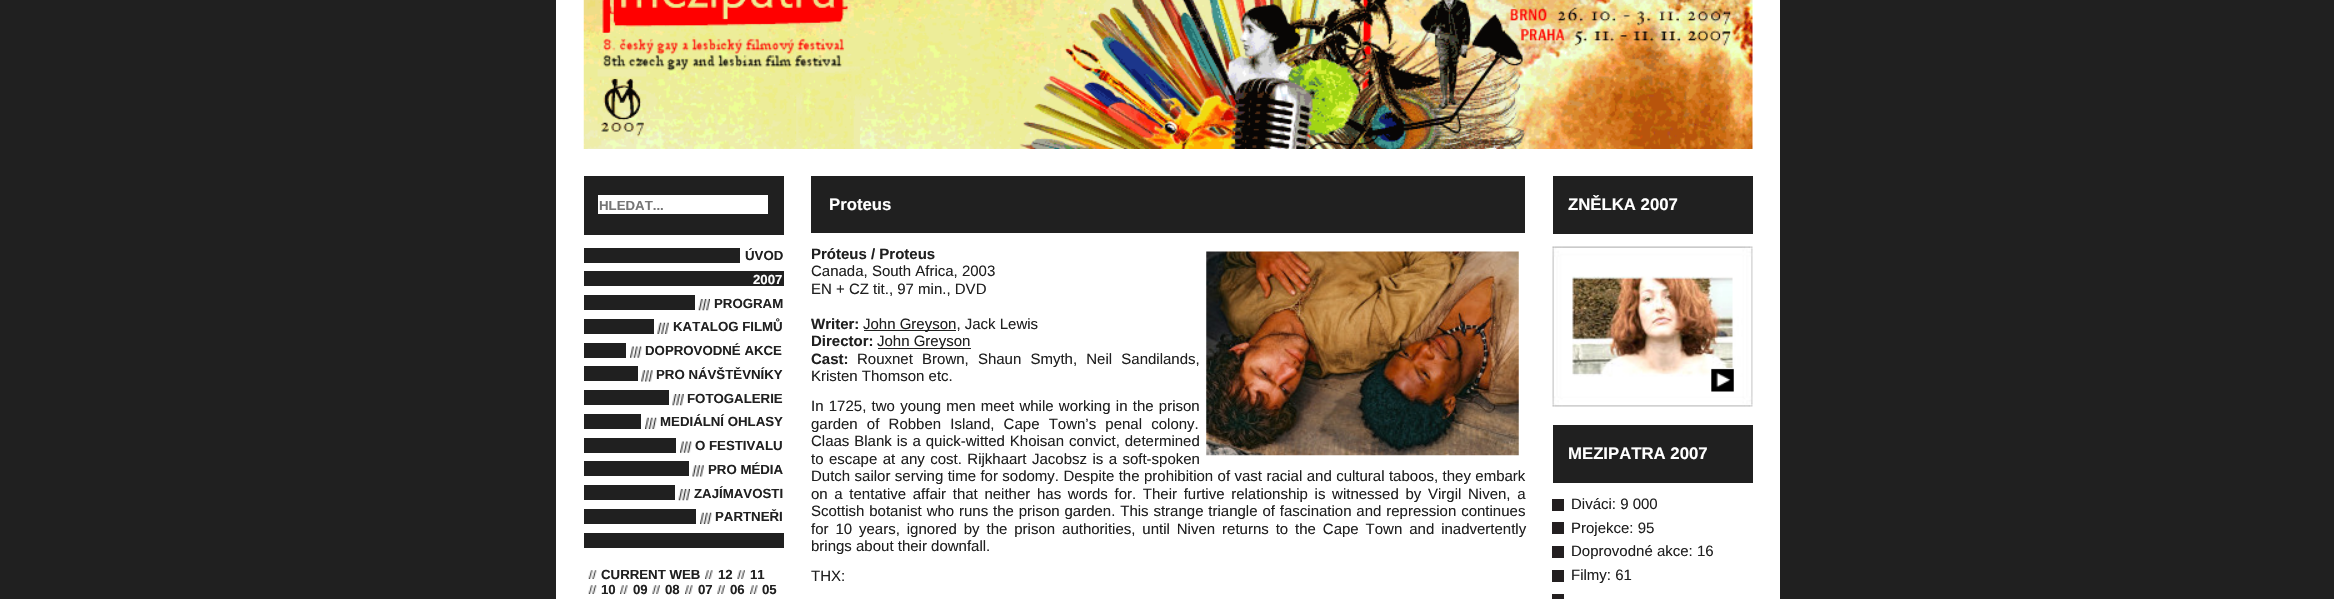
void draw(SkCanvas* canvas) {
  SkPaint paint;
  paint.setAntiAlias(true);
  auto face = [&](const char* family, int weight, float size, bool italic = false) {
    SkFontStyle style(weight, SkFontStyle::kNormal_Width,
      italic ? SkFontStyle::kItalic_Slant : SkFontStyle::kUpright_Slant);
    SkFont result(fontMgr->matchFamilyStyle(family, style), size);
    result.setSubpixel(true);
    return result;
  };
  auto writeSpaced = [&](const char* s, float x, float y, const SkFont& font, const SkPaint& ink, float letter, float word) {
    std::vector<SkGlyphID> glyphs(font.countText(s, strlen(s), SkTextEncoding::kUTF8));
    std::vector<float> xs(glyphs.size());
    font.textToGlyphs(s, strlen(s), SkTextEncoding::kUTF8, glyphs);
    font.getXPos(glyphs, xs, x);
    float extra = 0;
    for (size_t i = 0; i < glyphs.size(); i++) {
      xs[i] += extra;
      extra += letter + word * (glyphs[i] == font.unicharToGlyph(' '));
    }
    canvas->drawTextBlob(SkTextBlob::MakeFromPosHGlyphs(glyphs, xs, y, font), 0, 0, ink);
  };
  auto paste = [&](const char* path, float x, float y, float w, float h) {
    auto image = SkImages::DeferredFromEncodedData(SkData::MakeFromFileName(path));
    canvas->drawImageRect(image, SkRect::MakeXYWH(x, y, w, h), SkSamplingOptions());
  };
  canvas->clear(0xff202020);
  paint.setColor(0xffffffff);
  canvas->drawRect(SkRect::MakeXYWH(556, 0, 1224, 599), paint);
  paste("img/1.png", 583, 0, 1170, 149);
  {
    const struct { float x, y, w, h; SkColor color; } items[] = {
      {584, 176, 200, 59, 0xff202020},
      {598, 195, 170, 19, 0xffffffff},
      {584, 248, 156, 15, 0xff202020},
      {584, 271, 200, 15, 0xff202020},
      {584, 295, 111, 15, 0xff202020},
    };
    for (auto [x, y, w, h, color] : items) {
      paint.setColor(color);
      canvas->drawRect(SkRect::MakeXYWH(x, y, w, h), paint);
    }
  }
  paste("img/2.png", 698, 299, 12, 12);
  canvas->drawRect(SkRect::MakeXYWH(584, 319, 70, 15), paint);
  paste("img/3.png", 657, 322, 12, 12);
  canvas->drawRect(SkRect::MakeXYWH(584, 343, 42, 15), paint);
  paste("img/4.png", 630, 346, 12, 12);
  canvas->drawRect(SkRect::MakeXYWH(584, 366, 54, 15), paint);
  paste("img/5.png", 641, 370, 12, 12);
  canvas->drawRect(SkRect::MakeXYWH(584, 390, 85, 15), paint);
  paste("img/6.png", 672, 394, 12, 12);
  canvas->drawRect(SkRect::MakeXYWH(584, 414, 57, 15), paint);
  paste("img/7.png", 645, 417, 12, 12);
  canvas->drawRect(SkRect::MakeXYWH(584, 438, 92, 15), paint);
  paste("img/8.png", 680, 441, 12, 12);
  canvas->drawRect(SkRect::MakeXYWH(584, 461, 105, 15), paint);
  paste("img/9.png", 692, 465, 12, 12);
  canvas->drawRect(SkRect::MakeXYWH(584, 485, 91, 15), paint);
  paste("img/2.png", 678, 489, 12, 12);
  canvas->drawRect(SkRect::MakeXYWH(584, 509, 112, 15), paint);
  paste("img/10.png", 700, 512, 12, 12);
  canvas->drawRect(SkRect::MakeXYWH(584, 533, 200, 15), paint);
  paste("img/11.png", 588, 570, 9, 9);
  paste("img/12.png", 705, 570, 8, 9);
  paste("img/13.png", 737, 570, 8, 9);
  paste("img/11.png", 588, 585, 9, 9);
  paste("img/14.png", 620, 585, 8, 9);
  paste("img/13.png", 652, 585, 8, 9);
  paste("img/12.png", 685, 585, 8, 9);
  paste("img/13.png", 717, 585, 8, 9);
  paste("img/12.png", 750, 585, 8, 9);
  canvas->drawRect(SkRect::MakeXYWH(811, 176, 714, 57), paint);
  paste("img/15.png", 1206, 251, 313, 205);
  {
    const struct { float x, y, w, h; SkColor color; } items[] = {
      {864, 330, 92, 1, 0xff202020},
      {878, 348, 93, 1, 0xff202020},
      {1553, 176, 200, 58, 0xff202020},
    };
    for (auto [x, y, w, h, color] : items) {
      paint.setColor(color);
      canvas->drawRect(SkRect::MakeXYWH(x, y, w, h), paint);
    }
  }
  paste("img/16.png", 1552, 246, 201, 161);
  paste("img/17.png", 1710, 367, 24, 25);
  {
    const struct { float x, y, w, h; SkColor color; } items[] = {
      {1553, 425, 200, 58, 0xff202020},
      {1552, 499, 12, 12, 0xff231f20},
      {1552, 522, 12, 12, 0xff231f20},
      {1552, 546, 12, 12, 0xff231f20},
      {1552, 570, 12, 12, 0xff231f20},
      {1552, 594, 12, 5, 0xff231f20},
    };
    for (auto [x, y, w, h, color] : items) {
      paint.setColor(color);
      canvas->drawRect(SkRect::MakeXYWH(x, y, w, h), paint);
    }
  }
  auto f0 = face("Liberation Sans", 700, 13.25f);
  paint.setColor(0xff757575);
  canvas->drawString("HLEDAT...", 599, 210, f0, paint);
  paint.setColor(0xff202020);
  canvas->drawString("ÚVOD", 745, 260, f0, paint);
  paint.setColor(0xffffffff);
  canvas->drawString("2007", 753, 284, f0, paint);
  paint.setColor(0xff202020);
  {
    const struct { const char* s; float x, y; } items[] = {
      {"PROGRAM", 714, 308},
      {"KATALOG FILMŮ", 673, 331},
      {"DOPROVODNÉ AKCE", 645, 355},
      {"PRO NÁVŠTĚVNÍKY", 656, 379},
      {"FOTOGALERIE", 687, 403},
      {"MEDIÁLNÍ OHLASY", 660, 426},
      {"O FESTIVALU", 695, 450},
      {"PRO MÉDIA", 708, 474},
      {"ZAJÍMAVOSTI", 694, 498},
      {"PARTNEŘI", 715, 521},
      {"CURRENT WEB", 601, 579},
      {"12", 718, 579},
      {"11", 750, 579},
      {"10", 601, 594},
      {"09", 633, 594},
      {"08", 665, 594},
      {"07", 698, 594},
      {"06", 730, 594},
      {"05", 762, 594},
    };
    for (auto [s, x, y] : items) {
      canvas->drawString(s, x, y, f0, paint);
    }
  }
  auto f1 = face("Liberation Sans", 700, 16.75f);
  paint.setColor(0xffffffff);
  canvas->drawString("Proteus", 829, 210, f1, paint);
  auto f2 = face("Liberation Sans", 700, 15);
  paint.setColor(0xff202020);
  canvas->drawString("Próteus / Proteus", 811, 259, f2, paint);
  auto f3 = face("Liberation Sans", 400, 15);
  canvas->drawString("Canada, South Africa, 2003", 811, 276, f3, paint);
  canvas->drawString("EN + CZ tit., 97 min., DVD", 811, 294, f3, paint);
  canvas->drawString("Writer:", 811, 329, f2, paint);
  canvas->drawString("John Greyson, Jack Lewis", 863, 329, f3, paint);
  canvas->drawString("Director:", 811, 346, f2, paint);
  canvas->drawString("John Greyson", 877, 346, f3, paint);
  canvas->drawString("Cast:", 811, 364, f2, paint);
  writeSpaced("Rouxnet Brown, Shaun Smyth, Neil Sandilands,", 857, 364, f3, paint, 0, 5);
  canvas->drawString("Kristen Thomson etc.", 811, 381, f3, paint);
  writeSpaced("In 1725, two young men meet while working in the prison", 811, 411, f3, paint, 0, 1.1f);
  writeSpaced("garden of Robben Island, Cape Town’s penal colony.", 811, 429, f3, paint, 0, 5);
  writeSpaced("Claas Blank is a quick-witted Khoisan convict, determined", 811, 446, f3, paint, 0, 0.75f);
  writeSpaced("to escape at any cost. Rijkhaart Jacobsz is a soft-spoken", 811, 464, f3, paint, 0, 1.25f);
  writeSpaced("Dutch sailor serving time for sodomy. Despite the prohibition of vast racial and cultural taboos, they embark", 811, 481, f3, paint, 0, 0.25f);
  writeSpaced("on a tentative affair that neither has words for. Their furtive relationship is witnessed by Virgil Niven, a", 811, 499, f3, paint, 0, 2.5f);
  writeSpaced("Scottish botanist who runs the prison garden. This strange triangle of fascination and repression continues", 811, 516, f3, paint, 0, 0.7f);
  writeSpaced("for 10 years, ignored by the prison authorities, until Niven returns to the Cape Town and inadvertently", 811, 534, f3, paint, 0, 2.75f);
  canvas->drawString("brings about their downfall.", 811, 551, f3, paint);
  canvas->drawString("THX:", 811, 581, f3, paint);
  paint.setColor(0xffffffff);
  canvas->drawString("ZNĚLKA 2007", 1568, 210, f1, paint);
  canvas->drawString("MEZIPATRA 2007", 1568, 459, f1, paint);
  paint.setColor(0xff202020);
  {
    const struct { const char* s; float x, y; } items[] = {
      {"Diváci: 9 000", 1571, 509},
      {"Projekce: 95", 1571, 533},
      {"Doprovodné akce: 16", 1571, 556},
      {"Filmy: 61", 1571, 580},
    };
    for (auto [s, x, y] : items) {
      canvas->drawString(s, x, y, f3, paint);
    }
  }
}
